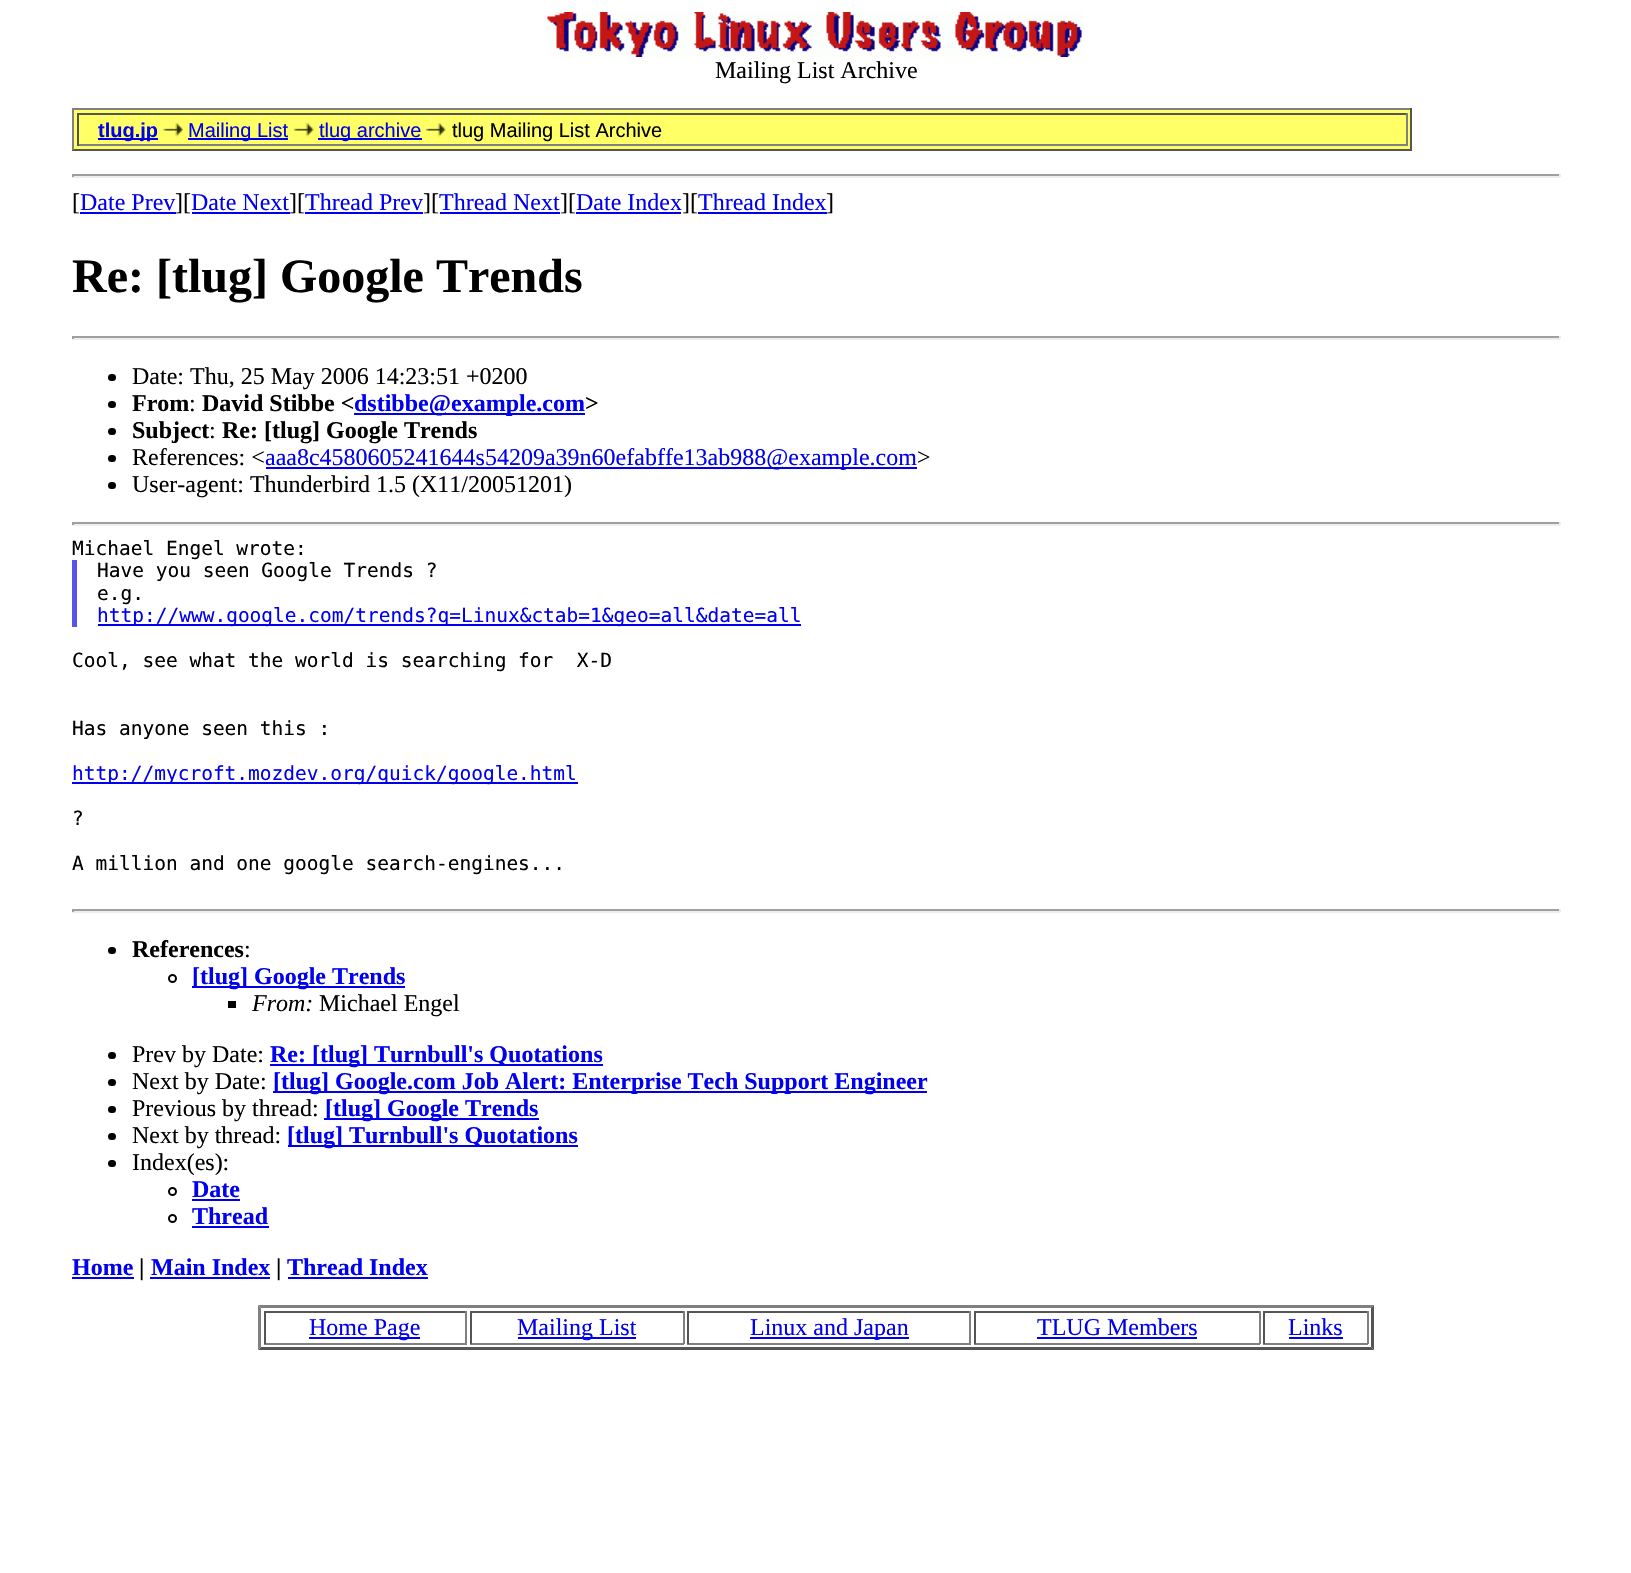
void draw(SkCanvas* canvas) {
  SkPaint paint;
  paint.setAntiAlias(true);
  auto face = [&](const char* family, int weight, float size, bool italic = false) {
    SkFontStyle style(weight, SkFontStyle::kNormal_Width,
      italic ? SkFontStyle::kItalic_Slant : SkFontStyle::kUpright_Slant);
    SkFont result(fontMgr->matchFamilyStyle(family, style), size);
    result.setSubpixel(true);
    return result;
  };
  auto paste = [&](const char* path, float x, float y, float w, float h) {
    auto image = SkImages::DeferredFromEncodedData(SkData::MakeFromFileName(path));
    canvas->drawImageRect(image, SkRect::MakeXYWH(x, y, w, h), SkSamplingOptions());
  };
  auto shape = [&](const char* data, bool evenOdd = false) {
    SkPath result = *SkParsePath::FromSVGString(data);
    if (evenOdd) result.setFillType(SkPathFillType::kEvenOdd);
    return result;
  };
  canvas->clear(0xffffffff);
  paste("img/1.png", 547, 12, 535, 45);
  {
    const struct { float x, y, w, h; SkColor color; } items[] = {
      {74, 110, 1336, 39, 0xffffff66},
      {72, 108, 1340, 2, 0xff808080},
      {1410, 108, 2, 42, 0xff555555},
      {72, 149, 1340, 2, 0xff555555},
      {72, 108, 2, 42, 0xff808080},
      {77, 113, 1330, 2, 0xff555555},
      {1406, 113, 2, 33, 0xff808080},
      {77, 144, 1330, 2, 0xff808080},
      {77, 113, 2, 33, 0xff555555},
      {98, 138, 60, 2, 0xff0000ee},
    };
    for (auto [x, y, w, h, color] : items) {
      paint.setColor(color);
      canvas->drawRect(SkRect::MakeXYWH(x, y, w, h), paint);
    }
  }
  paste("img/2.png", 163, 123, 20, 14);
  canvas->drawRect(SkRect::MakeXYWH(188, 138, 100, 2), paint);
  paste("img/3.png", 294, 123, 20, 14);
  canvas->drawRect(SkRect::MakeXYWH(318, 138, 104, 2), paint);
  paste("img/3.png", 426, 123, 20, 14);
  {
    const struct { float x, y, w, h; SkColor color; } items[] = {
      {72, 174, 1488, 2, 0xff9f9f9f},
      {1559, 174, 2, 3, 0xffeeeeee},
      {72, 176, 1488, 2, 0xffeeeeee},
      {72, 174, 2, 3, 0xff9f9f9f},
      {80, 212, 96, 2, 0xff0000ee},
      {192, 212, 98, 2, 0xff0000ee},
      {305, 212, 118, 2, 0xff0000ee},
      {440, 212, 120, 2, 0xff0000ee},
      {576, 212, 105, 2, 0xff0000ee},
      {698, 212, 129, 2, 0xff0000ee},
      {72, 336, 1488, 2, 0xff9f9f9f},
      {1559, 336, 2, 3, 0xffeeeeee},
      {72, 338, 1488, 2, 0xffeeeeee},
      {72, 336, 2, 3, 0xff9f9f9f},
    };
    for (auto [x, y, w, h, color] : items) {
      paint.setColor(color);
      canvas->drawRect(SkRect::MakeXYWH(x, y, w, h), paint);
    }
  }
  paint.setColor(0xff000000);
  canvas->drawRoundRect(SkRect::MakeXYWH(108, 374, 8, 7), 3.5f, 3.5f, paint);
  canvas->drawRoundRect(SkRect::MakeXYWH(108, 401, 8, 7), 3.5f, 3.5f, paint);
  paint.setColor(0xff0000ee);
  canvas->drawRect(SkRect::MakeXYWH(354, 413, 231, 2), paint);
  paint.setColor(0xff000000);
  canvas->drawRoundRect(SkRect::MakeXYWH(108, 428, 8, 7), 3.5f, 3.5f, paint);
  canvas->drawRoundRect(SkRect::MakeXYWH(108, 455, 8, 7), 3.5f, 3.5f, paint);
  paint.setColor(0xff0000ee);
  canvas->drawRect(SkRect::MakeXYWH(266, 467, 651, 2), paint);
  paint.setColor(0xff000000);
  canvas->drawRoundRect(SkRect::MakeXYWH(108, 482, 8, 7), 3.5f, 3.5f, paint);
  {
    const struct { float x, y, w, h; SkColor color; } items[] = {
      {72, 522, 1488, 2, 0xff9f9f9f},
      {1559, 522, 2, 3, 0xffeeeeee},
      {72, 524, 1488, 2, 0xffeeeeee},
      {72, 522, 2, 3, 0xff9f9f9f},
      {72, 560, 5, 67, 0xff5555ee},
      {98, 624, 703, 2, 0xff0000ee},
      {72, 782, 506, 2, 0xff0000ee},
      {72, 909, 1488, 2, 0xff9f9f9f},
      {1559, 909, 2, 3, 0xffeeeeee},
      {72, 911, 1488, 2, 0xffeeeeee},
      {72, 909, 2, 3, 0xff9f9f9f},
    };
    for (auto [x, y, w, h, color] : items) {
      paint.setColor(color);
      canvas->drawRect(SkRect::MakeXYWH(x, y, w, h), paint);
    }
  }
  paint.setColor(0xff000000);
  canvas->drawRoundRect(SkRect::MakeXYWH(108, 947, 8, 7), 3.5f, 3.5f, paint);
  paint.setStroke(true);
  paint.setStrokeWidth(2);
  canvas->drawCircle(172.5f, 978.5f, 3.5f, paint);
  paint.setStroke(false);
  paint.setColor(0xff0000ee);
  canvas->drawRect(SkRect::MakeXYWH(192, 986, 213, 2), paint);
  paint.setColor(0xff000000);
  canvas->drawRect(SkRect::MakeXYWH(228, 1001, 8, 7), paint);
  canvas->drawRoundRect(SkRect::MakeXYWH(108, 1052, 8, 7), 3.5f, 3.5f, paint);
  paint.setColor(0xff0000ee);
  canvas->drawRect(SkRect::MakeXYWH(270, 1064, 333, 2), paint);
  paint.setColor(0xff000000);
  canvas->drawRoundRect(SkRect::MakeXYWH(108, 1079, 8, 7), 3.5f, 3.5f, paint);
  paint.setColor(0xff0000ee);
  canvas->drawRect(SkRect::MakeXYWH(273, 1091, 654, 2), paint);
  paint.setColor(0xff000000);
  canvas->drawRoundRect(SkRect::MakeXYWH(108, 1106, 8, 7), 3.5f, 3.5f, paint);
  paint.setColor(0xff0000ee);
  canvas->drawRect(SkRect::MakeXYWH(324, 1118, 215, 2), paint);
  paint.setColor(0xff000000);
  canvas->drawRoundRect(SkRect::MakeXYWH(108, 1133, 8, 7), 3.5f, 3.5f, paint);
  paint.setColor(0xff0000ee);
  canvas->drawRect(SkRect::MakeXYWH(288, 1145, 290, 2), paint);
  paint.setColor(0xff000000);
  canvas->drawRoundRect(SkRect::MakeXYWH(108, 1160, 8, 7), 3.5f, 3.5f, paint);
  paint.setStroke(true);
  canvas->drawCircle(172.5f, 1191.5f, 3.5f, paint);
  paint.setStroke(false);
  paint.setColor(0xff0000ee);
  canvas->drawRect(SkRect::MakeXYWH(192, 1199, 48, 2), paint);
  paint.setStroke(true);
  paint.setColor(0xff000000);
  canvas->drawCircle(172.5f, 1218.5f, 3.5f, paint);
  paint.setStroke(false);
  {
    const struct { float x, y, w, h; SkColor color; } items[] = {
      {192, 1226, 77, 2, 0xff0000ee},
      {72, 1277, 62, 2, 0xff0000ee},
      {150, 1277, 120, 2, 0xff0000ee},
      {288, 1277, 140, 2, 0xff0000ee},
    };
    for (auto [x, y, w, h, color] : items) {
      paint.setColor(color);
      canvas->drawRect(SkRect::MakeXYWH(x, y, w, h), paint);
    }
  }
  paint.setColor(0xff808080);
  canvas->drawPath(shape("M258 1305H1374L1371 1308H261Z"), paint);
  paint.setColor(0xff555555);
  canvas->drawPath(shape("M1374 1305V1350L1371 1347V1308Z"), paint);
  canvas->drawPath(shape("M1374 1350H258L261 1347H1371Z"), paint);
  paint.setColor(0xff808080);
  canvas->drawPath(shape("M258 1350V1305L261 1308V1347Z"), paint);
  {
    const struct { float x, y, w, h; SkColor color; } items[] = {
      {264, 1311, 203, 2, 0xff555555},
      {465, 1311, 2, 33, 0xff808080},
      {264, 1343, 203, 2, 0xff808080},
      {264, 1311, 2, 33, 0xff555555},
      {309, 1337, 111, 2, 0xff0000ee},
      {470, 1311, 214, 2, 0xff555555},
      {683, 1311, 2, 33, 0xff808080},
      {470, 1343, 214, 2, 0xff808080},
      {470, 1311, 2, 33, 0xff555555},
      {518, 1337, 118, 2, 0xff0000ee},
      {687, 1311, 284, 2, 0xff555555},
      {969, 1311, 2, 33, 0xff808080},
      {687, 1343, 284, 2, 0xff808080},
      {687, 1311, 2, 33, 0xff555555},
      {750, 1337, 159, 2, 0xff0000ee},
      {974, 1311, 286, 2, 0xff555555},
      {1259, 1311, 2, 33, 0xff808080},
      {974, 1343, 286, 2, 0xff808080},
      {974, 1311, 2, 33, 0xff555555},
      {1037, 1337, 160, 2, 0xff0000ee},
      {1263, 1311, 105, 2, 0xff555555},
      {1367, 1311, 2, 33, 0xff808080},
      {1263, 1343, 105, 2, 0xff808080},
      {1263, 1311, 2, 33, 0xff555555},
      {1289, 1337, 54, 2, 0xff0000ee},
    };
    for (auto [x, y, w, h, color] : items) {
      paint.setColor(color);
      canvas->drawRect(SkRect::MakeXYWH(x, y, w, h), paint);
    }
  }
  auto f0 = face("Liberation Serif", 400, 24);
  paint.setColor(0xff000000);
  canvas->drawString("Mailing List Archive", 715, 78, f0, paint);
  auto f1 = face("Liberation Sans", 700, 20);
  paint.setColor(0xff0000ee);
  canvas->drawString("tlug.jp", 98, 137, f1, paint);
  auto f2 = face("Liberation Sans", 400, 20);
  canvas->drawString("Mailing List", 188, 137, f2, paint);
  canvas->drawString("tlug archive", 319, 137, f2, paint);
  paint.setColor(0xff000000);
  canvas->drawString("tlug Mailing List Archive", 452, 137, f2, paint);
  canvas->drawString("[", 72, 210, f0, paint);
  paint.setColor(0xff0000ee);
  canvas->drawString("Date Prev", 80, 210, f0, paint);
  paint.setColor(0xff000000);
  canvas->drawString("][", 175, 210, f0, paint);
  paint.setColor(0xff0000ee);
  canvas->drawString("Date Next", 191, 210, f0, paint);
  paint.setColor(0xff000000);
  canvas->drawString("][", 289, 210, f0, paint);
  paint.setColor(0xff0000ee);
  canvas->drawString("Thread Prev", 305, 210, f0, paint);
  paint.setColor(0xff000000);
  canvas->drawString("][", 423, 210, f0, paint);
  paint.setColor(0xff0000ee);
  canvas->drawString("Thread Next", 439, 210, f0, paint);
  paint.setColor(0xff000000);
  canvas->drawString("][", 560, 210, f0, paint);
  paint.setColor(0xff0000ee);
  canvas->drawString("Date Index", 576, 210, f0, paint);
  paint.setColor(0xff000000);
  canvas->drawString("][", 682, 210, f0, paint);
  paint.setColor(0xff0000ee);
  canvas->drawString("Thread Index", 698, 210, f0, paint);
  paint.setColor(0xff000000);
  canvas->drawString("]", 826, 210, f0, paint);
  auto f3 = face("Liberation Serif", 700, 48);
  canvas->drawString("Re: [tlug] Google Trends", 72, 292, f3, paint);
  canvas->drawString("Date: Thu, 25 May 2006 14:23:51 +0200", 132, 384, f0, paint);
  auto f4 = face("Liberation Serif", 700, 24);
  canvas->drawString("From", 132, 411, f4, paint);
  canvas->drawString(":", 189, 411, f0, paint);
  canvas->drawString("David Stibbe <", 202, 411, f4, paint);
  paint.setColor(0xff0000ee);
  canvas->drawString("dstibbe@example.com", 354, 411, f4, paint);
  paint.setColor(0xff000000);
  canvas->drawString(">", 585, 411, f4, paint);
  canvas->drawString("Subject", 132, 438, f4, paint);
  canvas->drawString(":", 209, 438, f0, paint);
  canvas->drawString("Re: [tlug] Google Trends", 222, 438, f4, paint);
  canvas->drawString("References: <", 132, 465, f0, paint);
  paint.setColor(0xff0000ee);
  canvas->drawString("aaa8c4580605241644s54209a39n60efabffe13ab988@example.com", 265, 465, f0, paint);
  paint.setColor(0xff000000);
  canvas->drawString(">", 917, 465, f0, paint);
  canvas->drawString("User-agent: Thunderbird 1.5 (X11/20051201)", 132, 492, f0, paint);
  auto f5 = face("DejaVu Sans Mono", 400, 19.5f);
  {
    const struct { const char* s; float x, y; } items[] = {
      {"Michael Engel wrote:", 72, 555},
      {"Have you seen Google Trends ?", 97, 577},
      {"e.g.", 97, 600},
    };
    for (auto [s, x, y] : items) {
      canvas->drawString(s, x, y, f5, paint);
    }
  }
  paint.setColor(0xff0000ee);
  canvas->drawString("http://www.google.com/trends?q=Linux&ctab=1&geo=all&date=all", 97, 622, f5, paint);
  paint.setColor(0xff000000);
  canvas->drawString("Cool, see what the world is searching for  X-D", 72, 667, f5, paint);
  canvas->drawString("Has anyone seen this :", 72, 735, f5, paint);
  paint.setColor(0xff0000ee);
  canvas->drawString("http://mycroft.mozdev.org/quick/google.html", 72, 780, f5, paint);
  paint.setColor(0xff000000);
  canvas->drawString("?", 72, 825, f5, paint);
  canvas->drawString("A million and one google search-engines...", 72, 870, f5, paint);
  canvas->drawString("References", 132, 957, f4, paint);
  canvas->drawString(":", 244, 957, f0, paint);
  paint.setColor(0xff0000ee);
  canvas->drawString("[tlug] Google Trends", 192, 984, f4, paint);
  auto f6 = face("Liberation Serif", 400, 24, true);
  paint.setColor(0xff000000);
  canvas->drawString("From:", 252, 1011, f6, paint);
  canvas->drawString("Michael Engel", 319, 1011, f0, paint);
  canvas->drawString("Prev by Date:", 132, 1062, f0, paint);
  paint.setColor(0xff0000ee);
  canvas->drawString("Re: [tlug] Turnbull's Quotations", 270, 1062, f4, paint);
  paint.setColor(0xff000000);
  canvas->drawString("Next by Date:", 132, 1089, f0, paint);
  paint.setColor(0xff0000ee);
  canvas->drawString("[tlug] Google.com Job Alert: Enterprise Tech Support Engineer", 273, 1089, f4, paint);
  paint.setColor(0xff000000);
  canvas->drawString("Previous by thread:", 132, 1116, f0, paint);
  paint.setColor(0xff0000ee);
  canvas->drawString("[tlug] Google Trends", 325, 1116, f4, paint);
  paint.setColor(0xff000000);
  canvas->drawString("Next by thread:", 132, 1143, f0, paint);
  paint.setColor(0xff0000ee);
  canvas->drawString("[tlug] Turnbull's Quotations", 287, 1143, f4, paint);
  paint.setColor(0xff000000);
  canvas->drawString("Index(es):", 132, 1170, f0, paint);
  paint.setColor(0xff0000ee);
  {
    const struct { const char* s; float x, y; } items[] = {
      {"Date", 192, 1197},
      {"Thread", 192, 1224},
      {"Home", 72, 1275},
    };
    for (auto [s, x, y] : items) {
      canvas->drawString(s, x, y, f4, paint);
    }
  }
  paint.setColor(0xff000000);
  canvas->drawString("|", 139, 1275, f4, paint);
  paint.setColor(0xff0000ee);
  canvas->drawString("Main Index", 151, 1275, f4, paint);
  paint.setColor(0xff000000);
  canvas->drawString("|", 276, 1275, f4, paint);
  paint.setColor(0xff0000ee);
  canvas->drawString("Thread Index", 287, 1275, f4, paint);
  {
    const struct { const char* s; float x, y; } items[] = {
      {"Home Page", 309, 1335},
      {"Mailing List", 517, 1335},
      {"Linux and Japan", 750, 1335},
      {"TLUG Members", 1037, 1335},
      {"Links", 1288, 1335},
    };
    for (auto [s, x, y] : items) {
      canvas->drawString(s, x, y, f0, paint);
    }
  }
}
